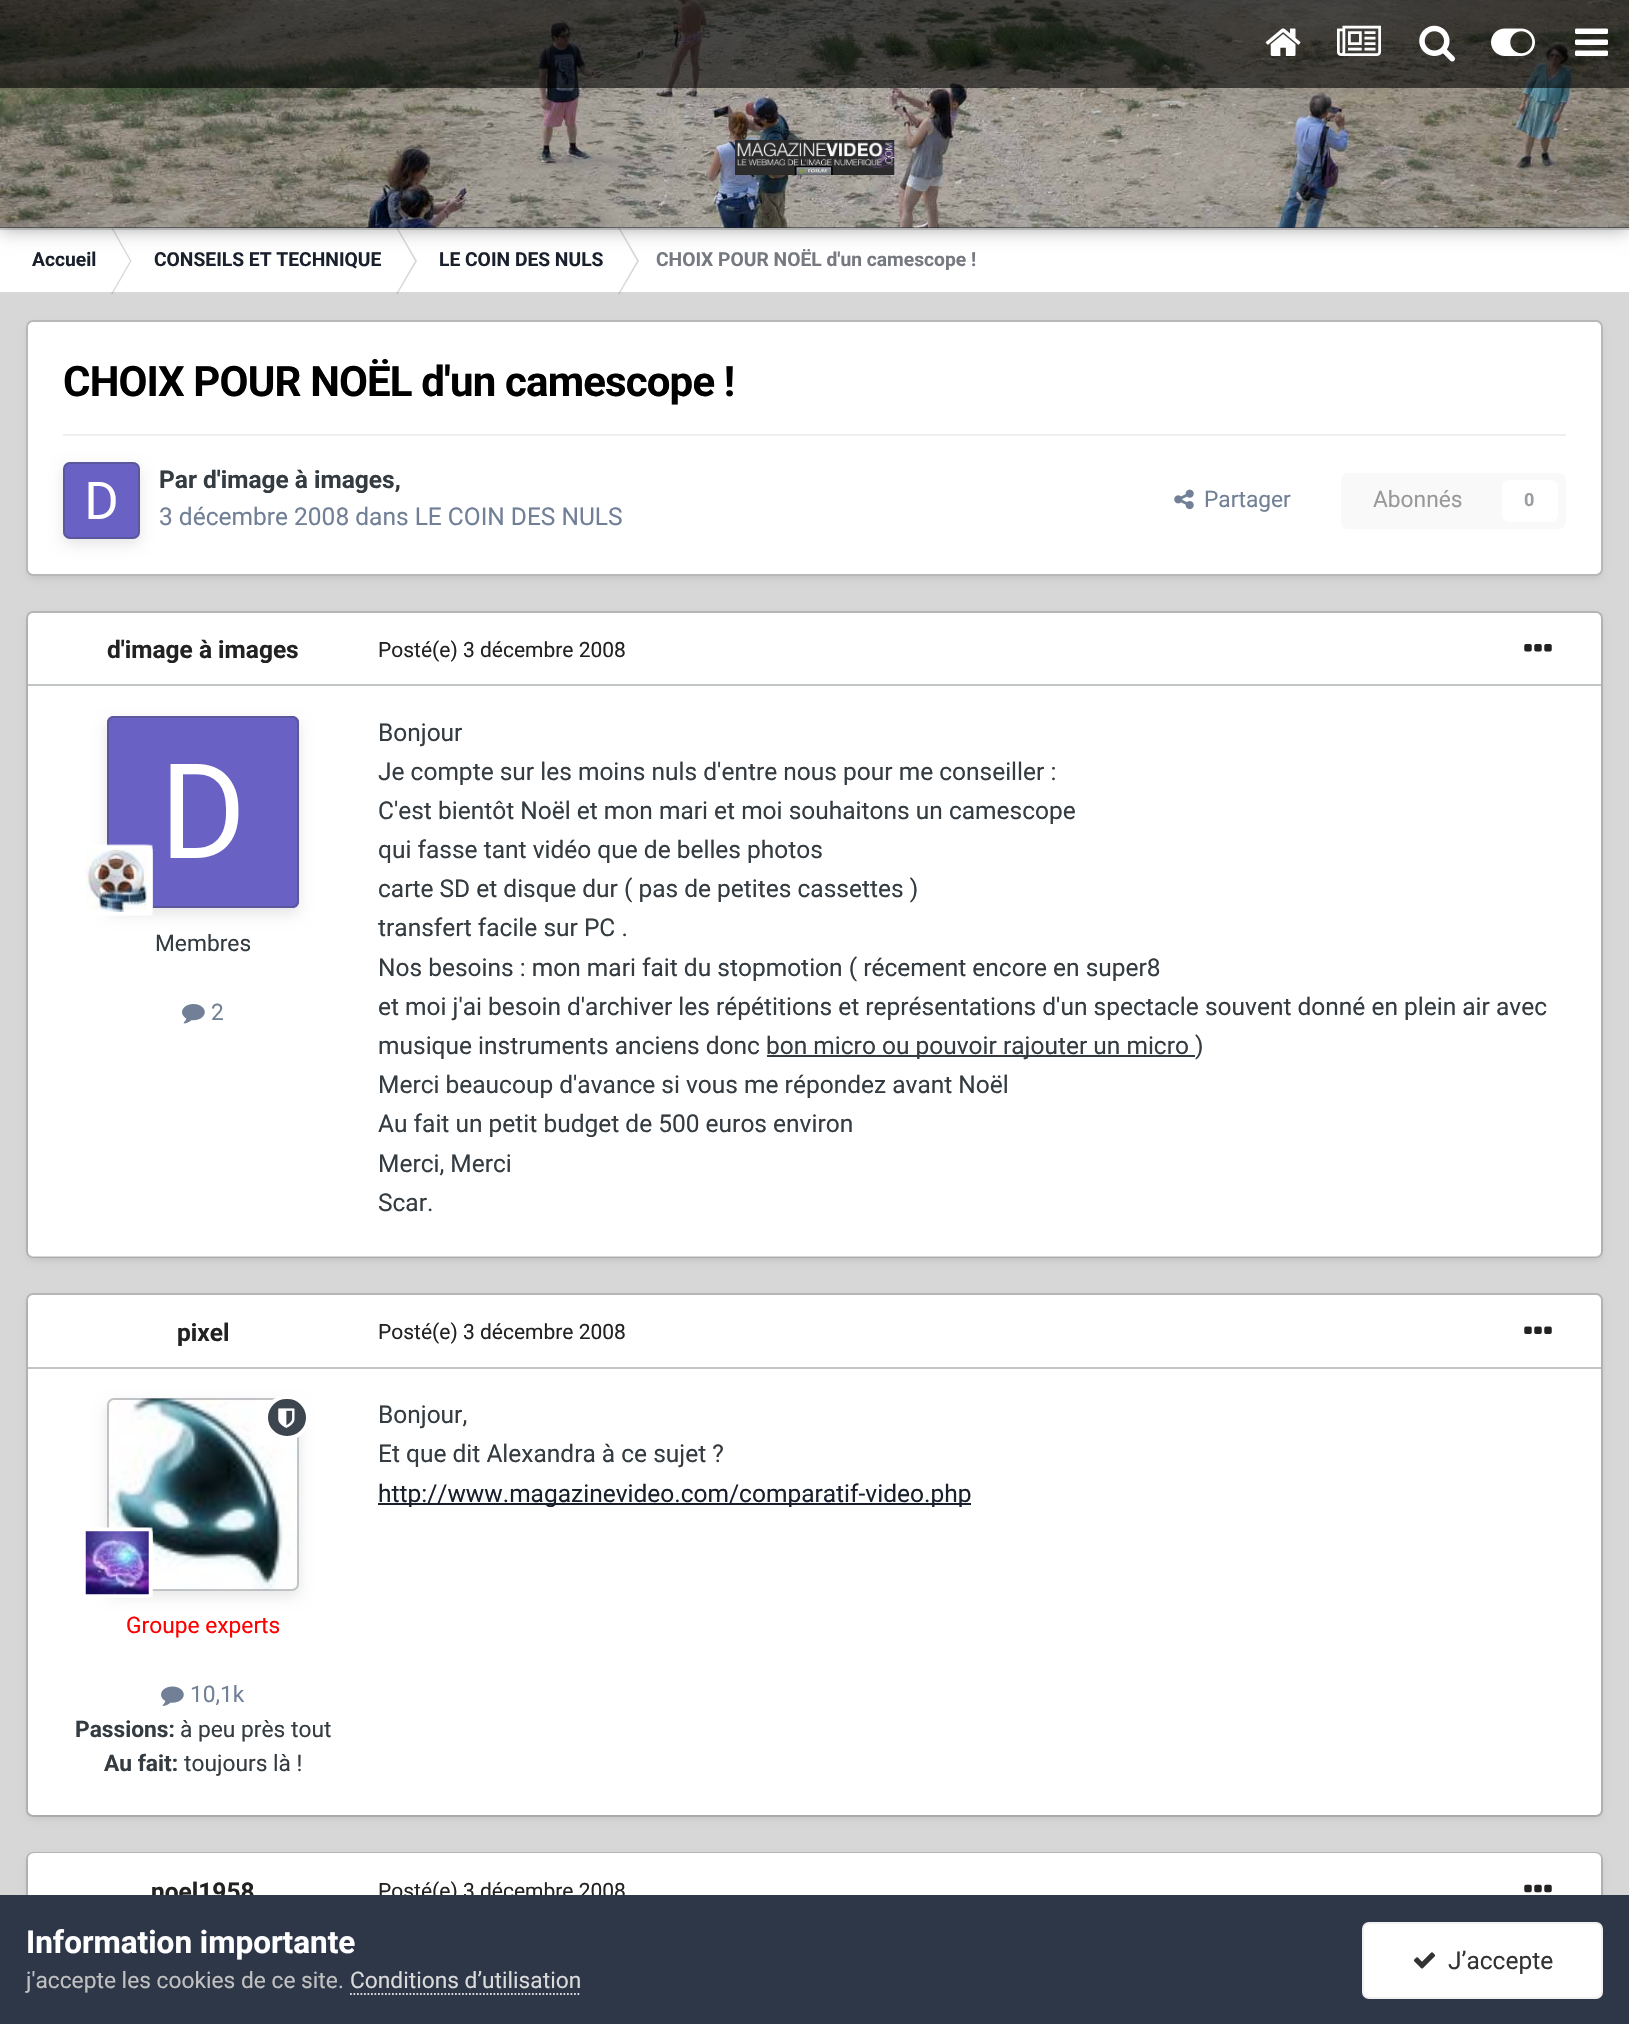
void draw(SkCanvas* canvas) {
  SkPaint paint;
  paint.setAntiAlias(true);
  auto face = [&](const char* family, int weight, float size, bool italic = false) {
    SkFontStyle style(weight, SkFontStyle::kNormal_Width,
      italic ? SkFontStyle::kItalic_Slant : SkFontStyle::kUpright_Slant);
    SkFont result(fontMgr->matchFamilyStyle(family, style), size);
    result.setSubpixel(true);
    return result;
  };
  auto writeSpaced = [&](const char* s, float x, float y, const SkFont& font, const SkPaint& ink, float letter, float word) {
    std::vector<SkGlyphID> glyphs(font.countText(s, strlen(s), SkTextEncoding::kUTF8));
    std::vector<float> xs(glyphs.size());
    font.textToGlyphs(s, strlen(s), SkTextEncoding::kUTF8, glyphs);
    font.getXPos(glyphs, xs, x);
    float extra = 0;
    for (size_t i = 0; i < glyphs.size(); i++) {
      xs[i] += extra;
      extra += letter + word * (glyphs[i] == font.unicharToGlyph(' '));
    }
    canvas->drawTextBlob(SkTextBlob::MakeFromPosHGlyphs(glyphs, xs, y, font), 0, 0, ink);
  };
  auto paste = [&](const char* path, float x, float y, float w, float h) {
    auto image = SkImages::DeferredFromEncodedData(SkData::MakeFromFileName(path));
    canvas->drawImageRect(image, SkRect::MakeXYWH(x, y, w, h), SkSamplingOptions());
  };
  auto shape = [&](const char* data, bool evenOdd = false) {
    SkPath result = *SkParsePath::FromSVGString(data);
    if (evenOdd) result.setFillType(SkPathFillType::kEvenOdd);
    return result;
  };
  canvas->clear(0xffd7d7d8);
  paint.setColor(0xffffffff);
  canvas->drawRect(SkRect::MakeXYWH(0, 228, 1629, 66), paint);
  paint.setColor(0xffd7d8d9);
  canvas->drawPath(shape("M111 227.5H112.5L131.5 261H130Z"), paint);
  canvas->drawPath(shape("M396 227.5H397.5L417 261H415Z"), paint);
  canvas->drawPath(shape("M618 227.5H619.5L639 261H637Z"), paint);
  paint.setColor(0x33353c41);
  canvas->drawRect(SkRect::MakeXYWH(0, 228, 1629, 2), paint);
  paint.setColor(0x59000000);
  paint.setMaskFilter(SkMaskFilter::MakeBlur(kNormal_SkBlurStyle, 9));
  canvas->drawRect(SkRect::MakeXYWH(0, 2, 1629, 227), paint);
  paint.setMaskFilter(nullptr);
  paint.setColor(0xff1f2126);
  canvas->drawRect(SkRect::MakeXYWH(0, 227, 1629, 1), paint);
  paste("img/1.png", 0, 0, 1629, 228);
  paint.setColor(0x99000000);
  canvas->drawRect(SkRect::MakeXYWH(0, 0, 1629, 88), paint);
  paste("img/2.png", 1265, 28, 36, 28);
  paste("img/3.png", 1337, 25, 44, 31);
  paste("img/4.png", 1419, 25, 36, 37);
  paste("img/5.png", 1491, 28, 44, 28);
  paste("img/6.png", 1575, 28, 33, 28);
  paste("img/7.png", 735, 140, 160, 35);
  paint.setColor(0xffd7d8d9);
  canvas->drawPath(shape("M111 294H112.5L131.5 261H130Z"), paint);
  canvas->drawPath(shape("M396 294H397.5L417 261H415Z"), paint);
  canvas->drawPath(shape("M618 294H619.5L639 261H637Z"), paint);
  paint.setColor(0x33353c41);
  canvas->drawRect(SkRect::MakeXYWH(0, 292, 1629, 2), paint);
  canvas->save();
  canvas->clipPath(shape("M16 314H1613V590H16ZM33 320H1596C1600 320 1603 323 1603 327V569C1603 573 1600 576 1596 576H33C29 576 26 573 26 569V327C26 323 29 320 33 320Z", true), true);
  paint.setColor(0x1a000000);
  paint.setMaskFilter(SkMaskFilter::MakeBlur(kNormal_SkBlurStyle, 3.5f));
  canvas->drawRoundRect(SkRect::MakeXYWH(28, 326, 1573, 252), 5, 5, paint);
  paint.setMaskFilter(nullptr);
  canvas->restore();
  paint.setColor(0xffffffff);
  canvas->drawRoundRect(SkRect::MakeXYWH(28, 322, 1573, 252), 5, 5, paint);
  paint.setStroke(true);
  paint.setStrokeWidth(2);
  paint.setColor(0x33353c41);
  canvas->drawRoundRect(SkRect::MakeXYWH(27, 321, 1575, 254), 6, 6, paint);
  paint.setStroke(false);
  paint.setColor(0xffefeff0);
  canvas->drawRect(SkRect::MakeXYWH(63, 434, 1503, 2), paint);
  paste("img/8.png", 63, 462, 77, 77);
  canvas->save();
  canvas->clipPath(shape("M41 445H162V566H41ZM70 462H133C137 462 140 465 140 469V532C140 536 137 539 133 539H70C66 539 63 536 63 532V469C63 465 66 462 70 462Z", true), true);
  paint.setColor(0x1a000000);
  paint.setMaskFilter(SkMaskFilter::MakeBlur(kNormal_SkBlurStyle, 7));
  canvas->drawRoundRect(SkRect::MakeXYWH(63, 467, 77, 77), 7, 7, paint);
  paint.setMaskFilter(nullptr);
  canvas->restore();
  paint.setStroke(true);
  paint.setColor(0x4d353c41);
  canvas->drawRoundRect(SkRect::MakeXYWH(64, 463, 75, 75), 6, 6, paint);
  paste("img/9.png", 1174, 489, 20, 21);
  paint.setStroke(false);
  paint.setColor(0xfff9f9f9);
  canvas->drawRoundRect(SkRect::MakeXYWH(1341, 473, 225, 56), 7, 7, paint);
  paint.setColor(0xffffffff);
  canvas->drawRoundRect(SkRect::MakeXYWH(1502, 480, 56, 42), 7, 7, paint);
  paint.setColor(0x1a000000);
  paint.setMaskFilter(SkMaskFilter::MakeBlur(kNormal_SkBlurStyle, 3.5f));
  canvas->drawRoundRect(SkRect::MakeXYWH(28, 616, 1573, 644), 5, 5, paint);
  paint.setMaskFilter(nullptr);
  paint.setColor(0xffffffff);
  canvas->drawRoundRect(SkRect::MakeXYWH(28, 613, 1573, 644), 5, 5, paint);
  paint.setStroke(true);
  paint.setColor(0x33353c41);
  canvas->drawRoundRect(SkRect::MakeXYWH(27, 612, 1575, 645), 6, 6, paint);
  paste("img/10.png", 107, 716, 192, 192);
  canvas->save();
  canvas->clipPath(shape("M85 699H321V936H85ZM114 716H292C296 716 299 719 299 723V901C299 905 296 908 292 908H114C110 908 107 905 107 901V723C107 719 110 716 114 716Z", true), true);
  paint.setStroke(false);
  paint.setColor(0x1a000000);
  paint.setMaskFilter(SkMaskFilter::MakeBlur(kNormal_SkBlurStyle, 7));
  canvas->drawRoundRect(SkRect::MakeXYWH(107, 721, 192, 193), 7, 7, paint);
  paint.setMaskFilter(nullptr);
  canvas->restore();
  paint.setStroke(true);
  paint.setColor(0x4d353c41);
  canvas->drawRoundRect(SkRect::MakeXYWH(108, 717, 190, 190), 6, 6, paint);
  paste("img/11.png", 86, 844, 67, 72);
  paste("img/12.png", 182, 1004, 23, 20);
  paste("img/13.png", 1524, 644, 28, 8);
  paint.setStroke(false);
  paint.setColor(0xff353c41);
  canvas->drawRect(SkRect::MakeXYWH(767, 1055, 428, 2), paint);
  paint.setColor(0xffc2c5c6);
  canvas->drawRect(SkRect::MakeXYWH(28, 684, 1573, 2), paint);
  paint.setColor(0x1a000000);
  paint.setMaskFilter(SkMaskFilter::MakeBlur(kNormal_SkBlurStyle, 3.5f));
  canvas->drawRoundRect(SkRect::MakeXYWH(28, 1299, 1573, 519), 5, 5, paint);
  paint.setMaskFilter(nullptr);
  paint.setColor(0xffffffff);
  canvas->drawRoundRect(SkRect::MakeXYWH(28, 1295, 1573, 520), 5, 5, paint);
  paint.setStroke(true);
  paint.setColor(0x33353c41);
  canvas->drawRoundRect(SkRect::MakeXYWH(27, 1294, 1575, 522), 6, 6, paint);
  paste("img/14.png", 107, 1398, 192, 193);
  canvas->save();
  canvas->clipPath(shape("M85 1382H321V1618H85ZM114 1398H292C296 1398 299 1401 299 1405V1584C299 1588 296 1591 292 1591H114C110 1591 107 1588 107 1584V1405C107 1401 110 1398 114 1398Z", true), true);
  paint.setStroke(false);
  paint.setColor(0x1a000000);
  paint.setMaskFilter(SkMaskFilter::MakeBlur(kNormal_SkBlurStyle, 7));
  canvas->drawRoundRect(SkRect::MakeXYWH(107, 1404, 192, 192), 7, 7, paint);
  paint.setMaskFilter(nullptr);
  canvas->restore();
  paint.setStroke(true);
  paint.setColor(0x4d353c41);
  canvas->drawRoundRect(SkRect::MakeXYWH(108, 1399, 190, 191), 6, 6, paint);
  paint.setStroke(false);
  paint.setColor(0xff3d454e);
  canvas->drawRoundRect(SkRect::MakeXYWH(266, 1397, 42, 41), 20.5f, 20.5f, paint);
  paint.setStroke(true);
  paint.setStrokeWidth(4);
  paint.setColor(0xffffffff);
  canvas->drawRoundRect(SkRect::MakeXYWH(266, 1397, 42, 41), 20.5f, 20.5f, paint);
  paste("img/15.png", 278, 1408, 17, 20);
  paste("img/16.png", 85, 1527, 68, 71);
  paste("img/17.png", 161, 1686, 23, 20);
  paste("img/18.png", 1524, 1326, 28, 8);
  paint.setStroke(false);
  paint.setColor(0xff1a202c);
  canvas->drawRect(SkRect::MakeXYWH(378, 1503, 593, 2), paint);
  paint.setColor(0xffc2c5c6);
  canvas->drawRect(SkRect::MakeXYWH(28, 1367, 1573, 2), paint);
  paint.setColor(0x1a000000);
  paint.setMaskFilter(SkMaskFilter::MakeBlur(kNormal_SkBlurStyle, 3.5f));
  canvas->drawRoundRect(SkRect::MakeXYWH(28, 1857, 1573, 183), 5, 5, paint);
  paint.setMaskFilter(nullptr);
  paint.setColor(0xffffffff);
  canvas->drawRoundRect(SkRect::MakeXYWH(28, 1853, 1573, 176), 5, 5, paint);
  paint.setStroke(true);
  paint.setStrokeWidth(2);
  paint.setColor(0x33353c41);
  canvas->drawRoundRect(SkRect::MakeXYWH(27, 1853, 1575, 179), 6, 6, paint);
  paint.setStroke(false);
  paint.setColor(0xffffffff);
  canvas->drawPath(shape("M35 1853H1594C1598 1853 1601 1856 1601 1860V1927H28V1860C28 1856 31 1853 35 1853Z"), paint);
  paste("img/19.png", 1524, 1884, 28, 9);
  auto f0 = face("Roboto", 700, 19.25f);
  paint.setColor(0xff1a202c);
  {
    const struct { const char* s; float x, y; } items[] = {
      {"Accueil", 32, 266},
      {"CONSEILS ET TECHNIQUE", 154, 266},
      {"LE COIN DES NULS", 439, 266},
    };
    for (auto [s, x, y] : items) {
      canvas->drawString(s, x, y, f0, paint);
    }
  }
  paint.setColor(0xff767980);
  canvas->drawString("CHOIX POUR NOËL d'un camescope !", 656, 266, f0, paint);
  auto f1 = face("Roboto", 700, 42);
  paint.setColor(0xff000000);
  writeSpaced("CHOIX POUR NOËL d'un camescope !", 63, 396, f1, paint, -0.85f, 0);
  auto f2 = face("Roboto", 700, 24.5f);
  paint.setColor(0xff353c41);
  canvas->drawString("Par d'image à images,", 159, 488, f2, paint);
  auto f3 = face("Roboto", 400, 24.5f);
  paint.setColor(0xff718096);
  canvas->drawString("3 décembre 2008 dans LE COIN DES NULS", 159, 525, f3, paint);
  auto f4 = face("Roboto", 400, 22.75f);
  canvas->drawString("Partager", 1204, 507, f4, paint);
  paint.setColor(0xff999999);
  canvas->drawString("Abonnés", 1373, 507, f4, paint);
  auto f5 = face("Roboto", 700, 18);
  paint.setColor(0xff9a9ea0);
  canvas->drawString("0", 1524, 506, f5, paint);
  paint.setColor(0xff222222);
  canvas->drawString("d'image à images", 107, 658, f2, paint);
  paint.setColor(0xff353c41);
  canvas->drawString("Membres", 155, 951, f4, paint);
  paint.setColor(0xff718096);
  canvas->drawString("2", 211, 1020, f4, paint);
  auto f6 = face("Roboto", 400, 21);
  paint.setColor(0xff222222);
  canvas->drawString("Posté(e) 3 décembre 2008", 378, 657, f6, paint);
  paint.setColor(0xff353c41);
  {
    const struct { const char* s; float x, y; } items[] = {
      {"Bonjour", 378, 741},
      {"Je compte sur les moins nuls d'entre nous pour me conseiller :", 378, 780},
      {"C'est bientôt Noël et mon mari et moi souhaitons un camescope", 378, 819},
      {"qui fasse tant vidéo que de belles photos", 378, 858},
      {"carte SD et disque dur ( pas de petites cassettes )", 378, 897},
      {"transfert facile sur PC .", 378, 936},
      {"Nos besoins : mon mari fait du stopmotion ( récement encore en super8", 378, 976},
      {"et moi j'ai besoin d'archiver les répétitions et représentations d'un spectacle souvent donné en plein air avec", 378, 1015},
      {"musique instruments anciens donc", 378, 1054},
      {"bon micro ou pouvoir rajouter un micro )", 766, 1054},
      {"Merci beaucoup d'avance si vous me répondez avant Noël", 378, 1093},
      {"Au fait un petit budget de 500 euros environ", 378, 1132},
      {"Merci, Merci", 378, 1172},
      {"Scar.", 378, 1211},
    };
    for (auto [s, x, y] : items) {
      canvas->drawString(s, x, y, f3, paint);
    }
  }
  paint.setColor(0xff222222);
  canvas->drawString("pixel", 177, 1341, f2, paint);
  paint.setColor(0xffff0000);
  canvas->drawString("Groupe experts", 126, 1633, f4, paint);
  paint.setColor(0xff718096);
  canvas->drawString("10,1k", 190, 1702, f4, paint);
  auto f7 = face("Roboto", 700, 22.75f);
  paint.setColor(0xff353c41);
  canvas->drawString("Passions:", 75, 1737, f7, paint);
  canvas->drawString("à peu près tout", 180, 1737, f4, paint);
  canvas->drawString("Au fait:", 104, 1771, f7, paint);
  canvas->drawString("toujours là !", 184, 1771, f4, paint);
  paint.setColor(0xff222222);
  canvas->drawString("Posté(e) 3 décembre 2008", 378, 1339, f6, paint);
  paint.setColor(0xff353c41);
  canvas->drawString("Bonjour,", 378, 1423, f3, paint);
  canvas->drawString("Et que dit Alexandra à ce sujet ?", 378, 1462, f3, paint);
  paint.setColor(0xff1a202c);
  canvas->drawString("http://www.magazinevideo.com/comparatif-video.php", 378, 1502, f3, paint);
  paint.setColor(0xff222222);
  canvas->drawString("noel1958", 151, 1900, f2, paint);
  canvas->drawString("Posté(e) 3 décembre 2008", 378, 1898, f6, paint);
  paint.setColor(0xff2d3748);
  canvas->drawRect(SkRect::MakeXYWH(0, 1895, 1629, 129), paint);
  auto f8 = face("Roboto", 700, 31.5f);
  paint.setColor(0xffffffff);
  canvas->drawString("Information importante", 26, 1953, f8, paint);
  paint.setColor(0xffc0c0c0);
  canvas->drawString("j'accepte les cookies de ce site.", 26, 1988, f4, paint);
  paint.setColor(0xffdadada);
  canvas->drawString("Conditions d’utilisation", 350, 1988, f4, paint);
  paint.setStroke(true);
  paint.setStrokeWidth(1.8f);
  paint.setPathEffect(SkDashPathEffect::Make({{1.75f, 1.75f}}, 0));
  canvas->drawPath(shape("M350 1994H581"), paint);
  paint.setPathEffect(nullptr);
  paint.setStroke(false);
  paint.setColor(0xffffffff);
  canvas->drawRoundRect(SkRect::MakeXYWH(1362, 1922, 241, 77), 7, 7, paint);
  paint.setStroke(true);
  paint.setStrokeWidth(2);
  paint.setColor(0x12333333);
  canvas->drawRoundRect(SkRect::MakeXYWH(1363, 1923, 239, 75), 6, 6, paint);
  paste("img/20.png", 1413, 1952, 23, 17);
  paint.setStroke(false);
  paint.setColor(0xff333333);
  canvas->drawString("J’accepte", 1448, 1969, f3, paint);
}
